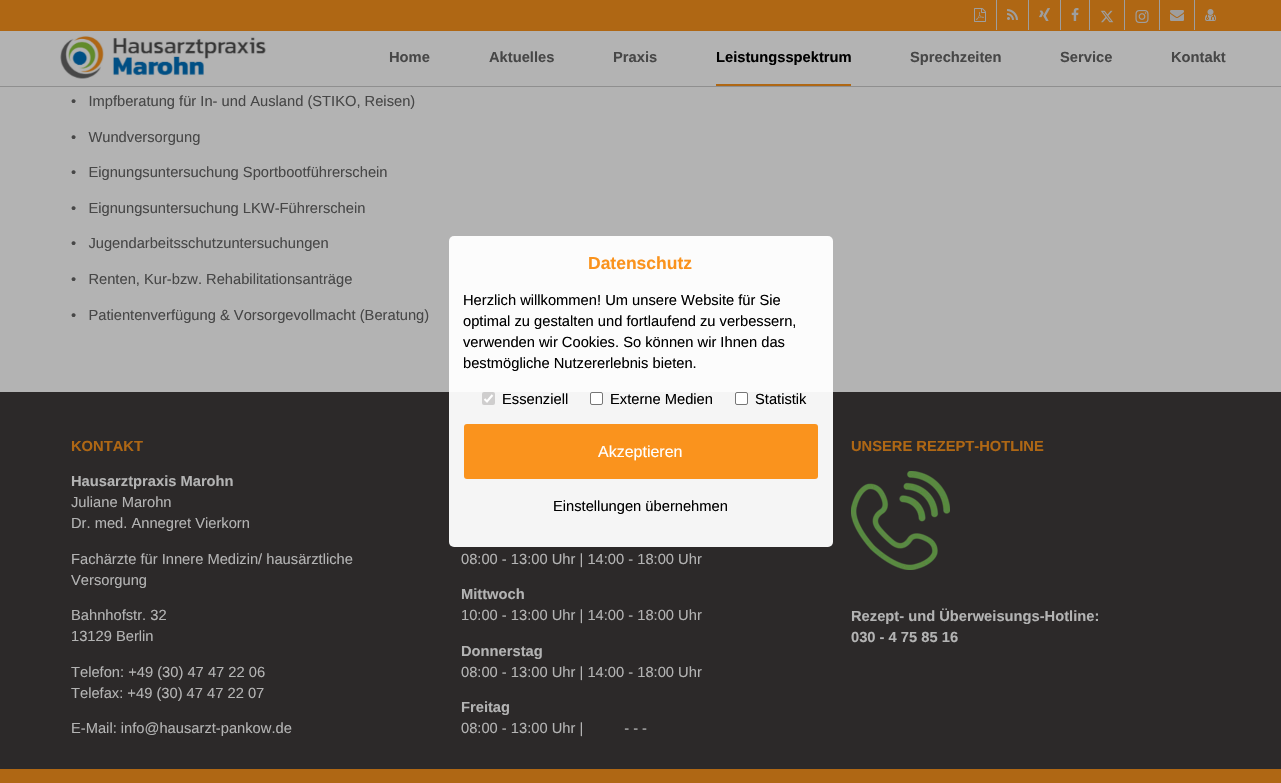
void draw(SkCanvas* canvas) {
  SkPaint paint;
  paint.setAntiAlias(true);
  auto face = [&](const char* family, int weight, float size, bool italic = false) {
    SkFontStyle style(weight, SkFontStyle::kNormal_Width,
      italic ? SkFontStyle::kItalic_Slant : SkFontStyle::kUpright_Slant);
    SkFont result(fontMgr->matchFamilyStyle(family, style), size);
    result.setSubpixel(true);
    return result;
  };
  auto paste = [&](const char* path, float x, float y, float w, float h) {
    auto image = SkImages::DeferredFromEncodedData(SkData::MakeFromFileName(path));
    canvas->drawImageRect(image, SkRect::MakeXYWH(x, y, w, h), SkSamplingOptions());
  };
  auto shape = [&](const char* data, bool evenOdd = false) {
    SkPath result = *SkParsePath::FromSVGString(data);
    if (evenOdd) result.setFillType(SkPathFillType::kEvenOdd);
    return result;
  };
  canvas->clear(0xffb3b3b3);
  {
    const struct { float x, y, w, h; SkColor color; } items[] = {
      {0, 86, 1281, 1, 0xff8f8f8f},
      {0, 0, 1281, 31, 0xffaf6714},
      {996, 0, 1, 30, 0xff9e9e9e},
    };
    for (auto [x, y, w, h, color] : items) {
      paint.setColor(color);
      canvas->drawRect(SkRect::MakeXYWH(x, y, w, h), paint);
    }
  }
  paste("img/1.png", 974, 8, 12, 14);
  canvas->drawRect(SkRect::MakeXYWH(1028, 0, 1, 30), paint);
  paste("img/2.png", 1007, 9, 11, 11);
  canvas->drawRect(SkRect::MakeXYWH(1060, 0, 1, 30), paint);
  paste("img/3.png", 1039, 8, 11, 13);
  canvas->drawRect(SkRect::MakeXYWH(1089, 0, 1, 30), paint);
  paste("img/4.png", 1071, 8, 8, 13);
  canvas->drawRect(SkRect::MakeXYWH(1124, 0, 1, 30), paint);
  paste("img/5.png", 1100, 10, 14, 13);
  canvas->drawRect(SkRect::MakeXYWH(1159, 0, 1, 30), paint);
  paste("img/6.png", 1135, 10, 14, 13);
  canvas->drawRect(SkRect::MakeXYWH(1194, 0, 1, 30), paint);
  paste("img/7.png", 1170, 10, 14, 11);
  paste("img/8.png", 1205, 9, 11, 12);
  paste("img/9.png", 60, 31, 211, 48);
  paint.setColor(0xffaf6714);
  canvas->drawRect(SkRect::MakeXYWH(716, 84, 135, 2), paint);
  paint.setColor(0xff2c2929);
  canvas->drawRect(SkRect::MakeXYWH(0, 392, 1281, 377), paint);
  paste("img/10.png", 851, 471, 99, 99);
  paint.setColor(0xffaf6714);
  canvas->drawRect(SkRect::MakeXYWH(0, 769, 1281, 14), paint);
  paint.setColor(0xf2ffffff);
  canvas->drawRoundRect(SkRect::MakeXYWH(449, 236, 384, 311), 5, 5, paint);
  paint.setColor(0xffcfcece);
  canvas->drawRoundRect(SkRect::MakeXYWH(482, 392, 13, 13), 2, 2, paint);
  paint.setStroke(true);
  paint.setStrokeWidth(2.1f);
  paint.setColor(0xffffffff);
  canvas->drawPath(shape("M484.5 399L487 401.5L492.5 395"), paint);
  paint.setStroke(false);
  canvas->drawRoundRect(SkRect::MakeXYWH(590.5f, 392.5f, 12, 12), 1.5f, 1.5f, paint);
  paint.setStroke(true);
  paint.setStrokeWidth(1);
  paint.setColor(0xff767676);
  canvas->drawRoundRect(SkRect::MakeXYWH(590.5f, 392.5f, 12, 12), 1.5f, 1.5f, paint);
  paint.setStroke(false);
  paint.setColor(0xffffffff);
  canvas->drawRoundRect(SkRect::MakeXYWH(735.5f, 392.5f, 12, 12), 1.5f, 1.5f, paint);
  paint.setStroke(true);
  paint.setColor(0xff767676);
  canvas->drawRoundRect(SkRect::MakeXYWH(735.5f, 392.5f, 12, 12), 1.5f, 1.5f, paint);
  paint.setStroke(false);
  paint.setColor(0xfffa931d);
  canvas->drawRoundRect(SkRect::MakeXYWH(464, 424, 354, 55), 3, 3, paint);
  auto f0 = face("Liberation Sans", 700, 14.7f);
  paint.setColor(0xff474747);
  {
    const struct { const char* s; float x, y; } items[] = {
      {"Home", 389, 62},
      {"Aktuelles", 489, 62},
      {"Praxis", 613, 62},
    };
    for (auto [s, x, y] : items) {
      canvas->drawString(s, x, y, f0, paint);
    }
  }
  paint.setColor(0xff000000);
  canvas->drawString("Leistungsspektrum", 716, 62, f0, paint);
  paint.setColor(0xff474747);
  {
    const struct { const char* s; float x, y; } items[] = {
      {"Sprechzeiten", 910, 62},
      {"Service", 1060, 62},
      {"Kontakt", 1171, 62},
    };
    for (auto [s, x, y] : items) {
      canvas->drawString(s, x, y, f0, paint);
    }
  }
  auto f1 = face("Liberation Sans", 400, 14.7f);
  {
    const struct { const char* s; float x, y; } items[] = {
      {"•   Impfberatung für In- und Ausland (STIKO, Reisen)", 71, 106},
      {"•   Wundversorgung", 71, 142},
      {"•   Eignungsuntersuchung Sportbootführerschein", 71, 177},
      {"•   Eignungsuntersuchung LKW-Führerschein", 71, 213},
      {"•   Jugendarbeitsschutzuntersuchungen", 71, 248},
      {"•   Renten, Kur-bzw. Rehabilitationsanträge", 71, 284},
      {"•   Patientenverfügung & Vorsorgevollmacht (Beratung)", 71, 320},
    };
    for (auto [s, x, y] : items) {
      canvas->drawString(s, x, y, f1, paint);
    }
  }
  paint.setColor(0xffaf6714);
  canvas->drawString("KONTAKT", 71, 451, f0, paint);
  paint.setColor(0xffb3b3b3);
  canvas->drawString("Hausarztpraxis Marohn", 71, 486, f0, paint);
  {
    const struct { const char* s; float x, y; } items[] = {
      {"Juliane Marohn", 71, 507},
      {"Dr. med. Annegret Vierkorn", 71, 528},
      {"Fachärzte für Innere Medizin/ hausärztliche", 71, 564},
      {"Versorgung", 71, 585},
      {"Bahnhofstr. 32", 71, 620},
      {"13129 Berlin", 71, 641},
      {"Telefon: +49 (30) 47 47 22 06", 71, 677},
      {"Telefax: +49 (30) 47 47 22 07", 71, 698},
      {"E-Mail: info@hausarzt-pankow.de", 71, 733},
      {"08:00 - 13:00 Uhr | 14:00 - 18:00 Uhr", 461, 564},
    };
    for (auto [s, x, y] : items) {
      canvas->drawString(s, x, y, f1, paint);
    }
  }
  canvas->drawString("Mittwoch", 461, 599, f0, paint);
  canvas->drawString("10:00 - 13:00 Uhr | 14:00 - 18:00 Uhr", 461, 620, f1, paint);
  canvas->drawString("Donnerstag", 461, 656, f0, paint);
  canvas->drawString("08:00 - 13:00 Uhr | 14:00 - 18:00 Uhr", 461, 677, f1, paint);
  canvas->drawString("Freitag", 461, 712, f0, paint);
  canvas->drawString("08:00 - 13:00 Uhr |          - - -", 461, 733, f1, paint);
  paint.setColor(0xffaf6714);
  canvas->drawString("UNSERE REZEPT-HOTLINE", 851, 451, f0, paint);
  paint.setColor(0xffb3b3b3);
  canvas->drawString("Rezept- und Überweisungs-Hotline:", 851, 621, f0, paint);
  canvas->drawString("030 - 4 75 85 16", 851, 642, f0, paint);
  auto f2 = face("Liberation Sans", 700, 17.5f);
  paint.setColor(0xfffa931d);
  canvas->drawString("Datenschutz", 588, 269, f2, paint);
  paint.setColor(0xff000000);
  {
    const struct { const char* s; float x, y; } items[] = {
      {"Herzlich willkommen! Um unsere Website für Sie", 463, 305},
      {"optimal zu gestalten und fortlaufend zu verbessern,", 463, 326},
      {"verwenden wir Cookies. So können wir Ihnen das", 463, 347},
      {"bestmögliche Nutzererlebnis bieten.", 463, 368},
      {"Essenziell", 502, 404},
      {"Externe Medien", 610, 404},
      {"Statistik", 755, 404},
    };
    for (auto [s, x, y] : items) {
      canvas->drawString(s, x, y, f1, paint);
    }
  }
  auto f3 = face("Liberation Sans", 400, 16);
  paint.setColor(0xffffffff);
  canvas->drawString("Akzeptieren", 598, 457, f3, paint);
  paint.setColor(0xff000000);
  canvas->drawString("Einstellungen übernehmen", 553, 511, f1, paint);
}
